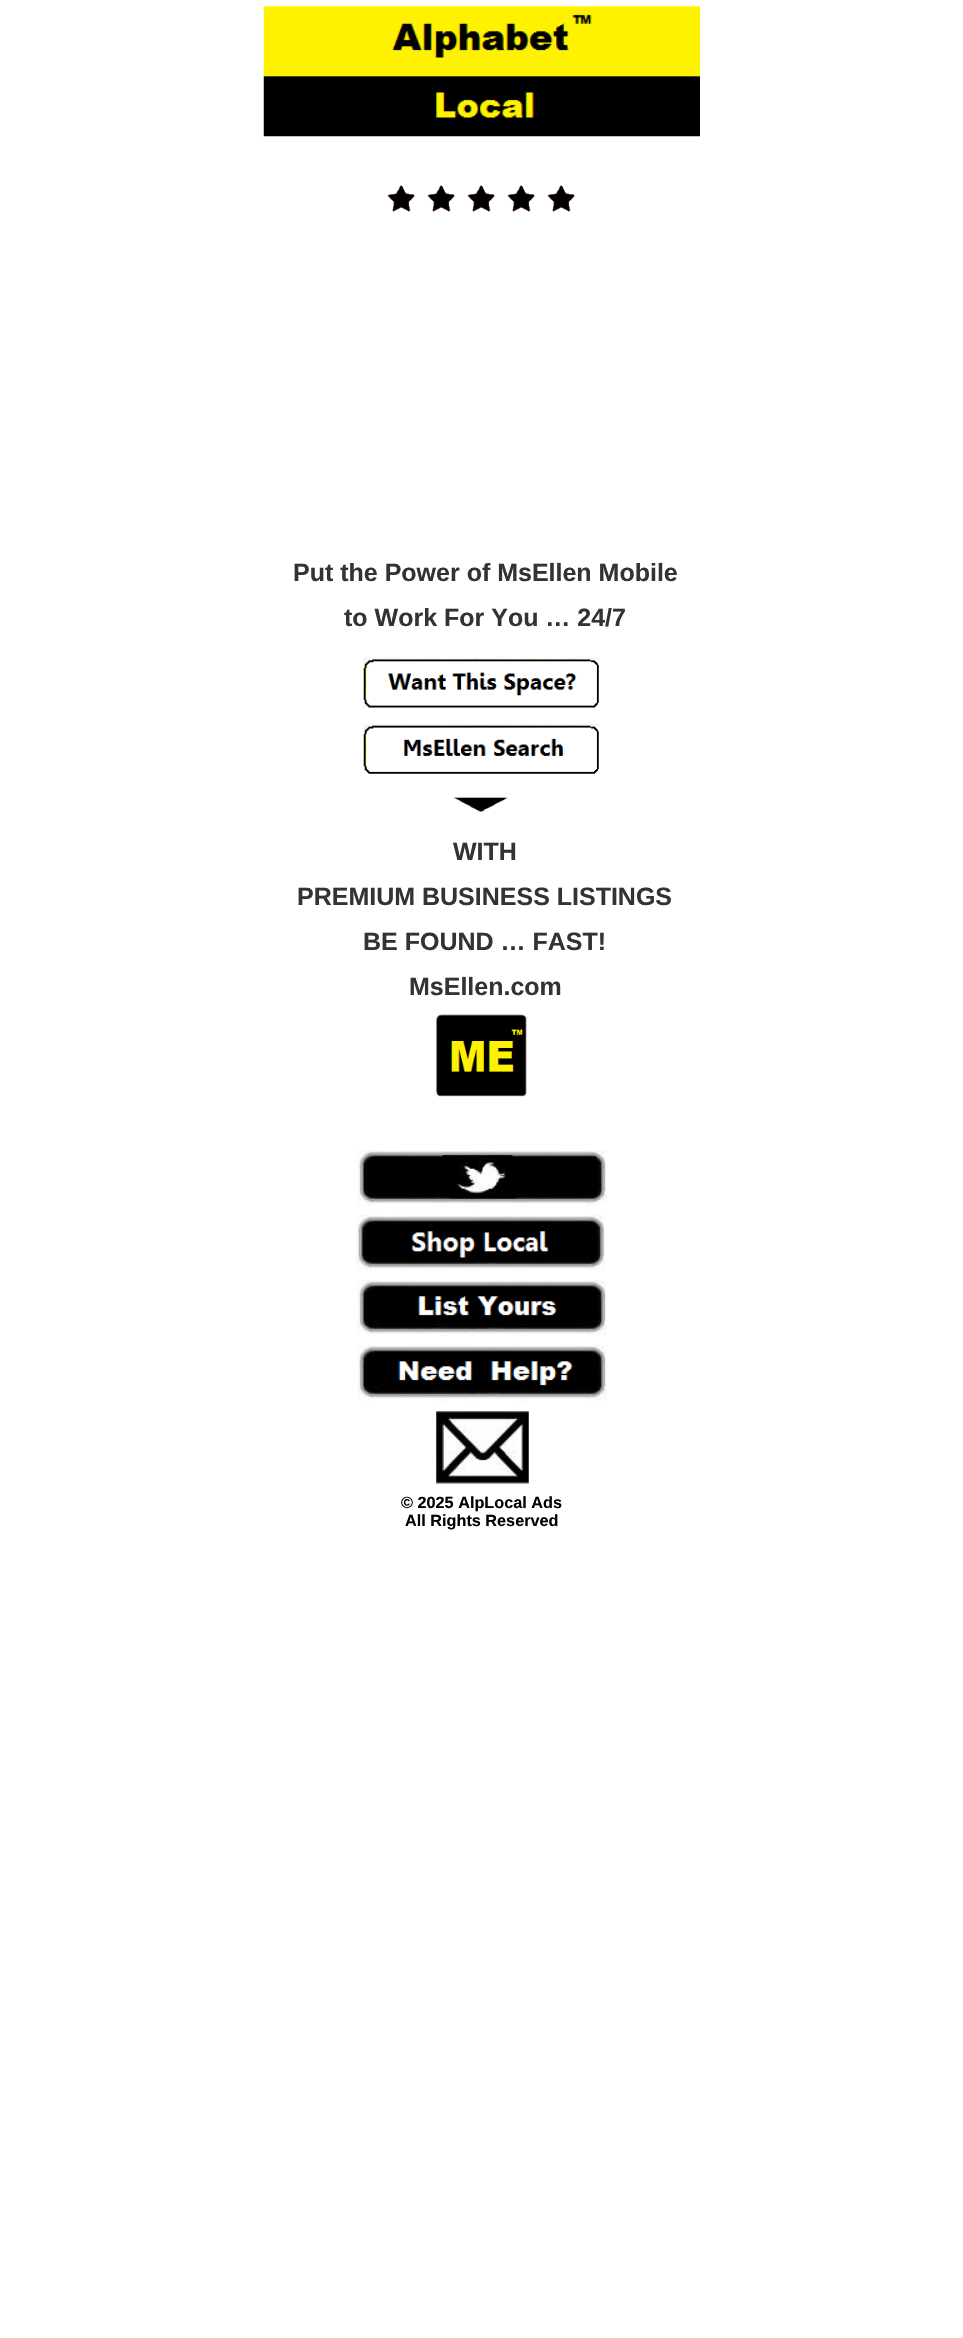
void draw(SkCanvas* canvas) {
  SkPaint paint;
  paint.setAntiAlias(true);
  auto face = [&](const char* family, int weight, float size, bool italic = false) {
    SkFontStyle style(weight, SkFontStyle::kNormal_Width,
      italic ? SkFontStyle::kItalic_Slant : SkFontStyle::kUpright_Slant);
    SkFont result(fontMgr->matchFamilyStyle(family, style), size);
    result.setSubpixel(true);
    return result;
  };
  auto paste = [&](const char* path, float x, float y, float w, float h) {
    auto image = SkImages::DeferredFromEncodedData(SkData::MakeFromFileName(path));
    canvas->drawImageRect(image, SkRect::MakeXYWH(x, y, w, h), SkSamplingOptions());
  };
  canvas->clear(0xffffffff);
  paste("img/1.png", 263, 6, 437, 131);
  paste("img/2.png", 388, 185, 27, 29);
  paste("img/2.png", 428, 185, 27, 29);
  paste("img/2.png", 468, 185, 27, 29);
  paste("img/2.png", 508, 185, 27, 29);
  paste("img/2.png", 548, 185, 27, 29);
  paste("img/3.png", 363, 657, 236, 51);
  paste("img/4.png", 363, 723, 236, 51);
  paste("img/5.png", 454, 797, 55, 15);
  paste("img/6.png", 435, 1014, 92, 83);
  paste("img/7.png", 357, 1150, 250, 56);
  paste("img/8.png", 356, 1215, 249, 56);
  paste("img/9.png", 357, 1280, 250, 56);
  paste("img/10.png", 357, 1345, 250, 56);
  paste("img/11.png", 436, 1410, 93, 74);
  auto f0 = face("Liberation Sans", 700, 25);
  paint.setColor(0xff333333);
  {
    const struct { const char* s; float x, y; } items[] = {
      {"Put the Power of MsEllen Mobile", 293, 581},
      {"to Work For You … 24/7", 344, 626},
      {"WITH", 453, 860},
      {"PREMIUM BUSINESS LISTINGS", 297, 905},
      {"BE FOUND … FAST!", 363, 950},
      {"MsEllen.com", 409, 995},
    };
    for (auto [s, x, y] : items) {
      canvas->drawString(s, x, y, f0, paint);
    }
  }
  auto f1 = face("Liberation Sans", 700, 16.25f);
  paint.setColor(0xff000000);
  canvas->drawString("© 2025 AlpLocal Ads", 401, 1508, f1, paint);
  canvas->drawString("All Rights Reserved", 405, 1526, f1, paint);
}
